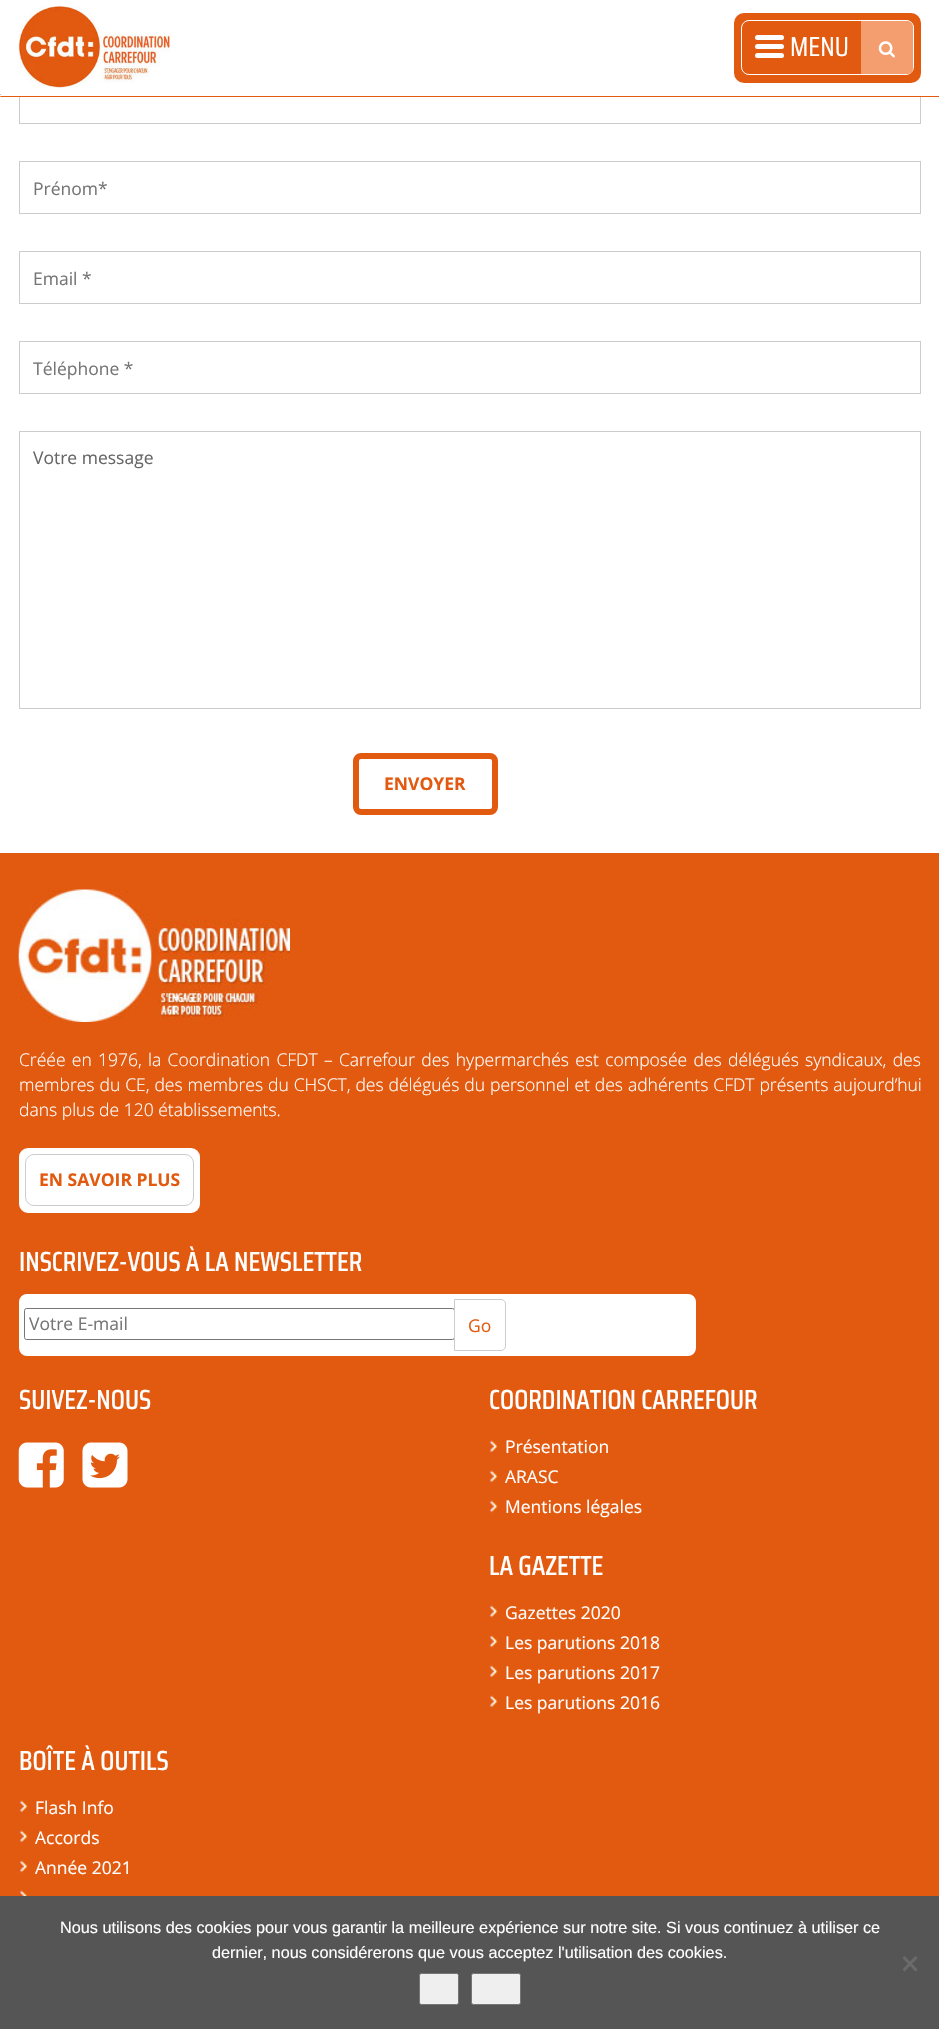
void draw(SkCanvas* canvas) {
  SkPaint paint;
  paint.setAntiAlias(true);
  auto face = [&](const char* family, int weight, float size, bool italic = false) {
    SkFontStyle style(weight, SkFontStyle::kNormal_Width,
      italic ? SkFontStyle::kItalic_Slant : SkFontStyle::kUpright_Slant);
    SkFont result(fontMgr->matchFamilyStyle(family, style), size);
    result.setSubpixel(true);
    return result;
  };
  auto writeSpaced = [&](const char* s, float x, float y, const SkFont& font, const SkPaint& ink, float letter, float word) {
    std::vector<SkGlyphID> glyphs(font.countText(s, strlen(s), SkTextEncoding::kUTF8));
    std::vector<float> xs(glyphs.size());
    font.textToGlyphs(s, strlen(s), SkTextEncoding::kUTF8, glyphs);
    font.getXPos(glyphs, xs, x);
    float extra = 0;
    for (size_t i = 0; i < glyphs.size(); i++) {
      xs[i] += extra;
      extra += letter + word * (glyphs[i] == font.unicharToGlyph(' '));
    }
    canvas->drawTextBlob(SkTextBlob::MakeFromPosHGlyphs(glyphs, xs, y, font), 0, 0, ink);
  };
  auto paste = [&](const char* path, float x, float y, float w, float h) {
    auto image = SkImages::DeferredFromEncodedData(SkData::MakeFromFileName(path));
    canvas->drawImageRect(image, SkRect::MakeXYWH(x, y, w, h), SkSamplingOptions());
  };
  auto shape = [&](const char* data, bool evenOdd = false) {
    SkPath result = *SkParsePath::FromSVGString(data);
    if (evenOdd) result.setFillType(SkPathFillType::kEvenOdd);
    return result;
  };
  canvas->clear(0xffffffff);
  paint.setStroke(true);
  paint.setStrokeWidth(1);
  paint.setColor(0xffcccccc);
  canvas->drawRect(SkRect::MakeXYWH(19.5f, 71.5f, 901, 52), paint);
  paint.setStroke(false);
  paint.setColor(0xffffffff);
  canvas->drawRect(SkRect::MakeXYWH(19, 71, 902, 23), paint);
  paste("img/1.png", 18, 6, 152, 82);
  paint.setColor(0xffe25a10);
  canvas->drawRoundRect(SkRect::MakeXYWH(738, 17, 179, 62), 6, 6, paint);
  paint.setStroke(true);
  paint.setStrokeWidth(8);
  canvas->drawRoundRect(SkRect::MakeXYWH(738, 17, 179, 62), 6, 6, paint);
  paint.setStrokeWidth(1);
  paint.setColor(0xffffffff);
  canvas->drawRoundRect(SkRect::MakeXYWH(741.5f, 20.5f, 172, 54), 7.5f, 7.5f, paint);
  paint.setStroke(false);
  canvas->drawRoundRect(SkRect::MakeXYWH(755, 35, 29, 5), 2.5f, 2.5f, paint);
  canvas->drawRoundRect(SkRect::MakeXYWH(755, 44, 29, 5), 2.5f, 2.5f, paint);
  canvas->drawRoundRect(SkRect::MakeXYWH(755, 53, 29, 5), 2.5f, 2.5f, paint);
  canvas->drawPath(shape("M869 20H906C910 20 914 23 914 28V65C914 69 910 72 906 72H869C865 72 861 69 861 65V28C861 23 865 20 869 20ZM869 21H906C910 21 912 24 912 28V65C912 68 910 71 906 71H869C865 71 861 68 861 65V28C861 24 865 21 869 21Z", true), paint);
  paint.setColor(0xfff49e6f);
  canvas->drawPath(shape("M861 21H907C910.5 21 913 23.5 913 27V68C913 71.5 910.5 74 907 74H861Z"), paint);
  paste("img/2.png", 878, 41, 17, 17);
  paint.setColor(0xffe25a10);
  canvas->drawRoundRect(SkRect::MakeXYWH(0, 94, 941, 3), 1.5f, 1.5f, paint);
  paint.setColor(0xffffffff);
  canvas->drawRect(SkRect::MakeXYWH(1, 94, 938, 2), paint);
  canvas->drawRect(SkRect::MakeXYWH(0, 95, 1, 1), paint);
  paint.setStroke(true);
  paint.setColor(0xffcccccc);
  canvas->drawRect(SkRect::MakeXYWH(19.5f, 161.5f, 901, 52), paint);
  canvas->drawRect(SkRect::MakeXYWH(19.5f, 251.5f, 901, 52), paint);
  canvas->drawRect(SkRect::MakeXYWH(19.5f, 341.5f, 901, 52), paint);
  canvas->drawRect(SkRect::MakeXYWH(19.5f, 431.5f, 901, 277), paint);
  paint.setStrokeWidth(6);
  paint.setColor(0xffe25a10);
  canvas->drawRoundRect(SkRect::MakeXYWH(356, 756, 139, 56), 5, 5, paint);
  paint.setStroke(false);
  canvas->drawRect(SkRect::MakeXYWH(0, 853, 939, 1043), paint);
  paste("img/3.png", 18, 889, 272, 133);
  paint.setColor(0xffffffff);
  canvas->drawRoundRect(SkRect::MakeXYWH(22, 1151, 175, 59), 6, 6, paint);
  paint.setStroke(true);
  canvas->drawRoundRect(SkRect::MakeXYWH(22, 1151, 175, 59), 6, 6, paint);
  paint.setStrokeWidth(1);
  paint.setColor(0xffcccccc);
  canvas->drawRoundRect(SkRect::MakeXYWH(25.5f, 1154.5f, 168, 51), 8.5f, 8.5f, paint);
  paint.setStroke(false);
  paint.setColor(0xffffffff);
  canvas->drawRoundRect(SkRect::MakeXYWH(21.5f, 1296.5f, 672, 57), 5.5f, 5.5f, paint);
  paint.setStroke(true);
  paint.setStrokeWidth(5);
  canvas->drawRoundRect(SkRect::MakeXYWH(21.5f, 1296.5f, 672, 57), 5.5f, 5.5f, paint);
  paint.setStrokeWidth(1);
  paint.setColor(0xff767676);
  canvas->drawRoundRect(SkRect::MakeXYWH(24.5f, 1308.5f, 430, 31), 2, 2, paint);
  paint.setStroke(false);
  paint.setColor(0xffffffff);
  canvas->drawPath(shape("M454.5 1299.5H501C503.5 1299.5 505.5 1301.5 505.5 1304V1346C505.5 1348.5 503.5 1350.5 501 1350.5H454.5Z"), paint);
  paint.setStroke(true);
  paint.setColor(0xffcccccc);
  canvas->drawPath(shape("M454.5 1299.5H501C503.5 1299.5 505.5 1301.5 505.5 1304V1346C505.5 1348.5 503.5 1350.5 501 1350.5H454.5Z"), paint);
  paste("img/4.png", 18, 1442, 46, 46);
  paste("img/5.png", 82, 1442, 46, 46);
  paste("img/6.png", 489, 1440, 9, 13);
  paste("img/6.png", 489, 1470, 9, 13);
  paste("img/6.png", 489, 1500, 9, 13);
  paste("img/6.png", 489, 1605, 9, 13);
  paste("img/6.png", 489, 1635, 9, 13);
  paste("img/6.png", 489, 1665, 9, 13);
  paste("img/6.png", 489, 1695, 9, 13);
  paste("img/6.png", 19, 1800, 9, 13);
  paste("img/6.png", 19, 1830, 9, 13);
  paste("img/6.png", 19, 1860, 9, 13);
  paste("img/7.png", 19, 1890, 9, 6);
  paint.setStroke(false);
  paint.setColor(0xff555555);
  canvas->drawRect(SkRect::MakeXYWH(0, 1896, 939, 133), paint);
  paint.setColor(0xff6b6b6b);
  canvas->drawPath(shape("M915.5 1956L917.5 1958L904.5 1971.5L902.5 1969.5Z"), paint);
  canvas->drawPath(shape("M902.5 1958L904.5 1956L917.5 1969.5L915.5 1971.5Z"), paint);
  paint.setColor(0xffefefef);
  canvas->drawRoundRect(SkRect::MakeXYWH(419.5f, 1973.5f, 39, 31), 2, 2, paint);
  paint.setStroke(true);
  paint.setColor(0xff767676);
  canvas->drawRoundRect(SkRect::MakeXYWH(419.5f, 1973.5f, 39, 31), 2, 2, paint);
  paint.setStroke(false);
  paint.setColor(0xffefefef);
  canvas->drawRoundRect(SkRect::MakeXYWH(471.5f, 1973.5f, 49, 31), 2, 2, paint);
  paint.setStroke(true);
  paint.setColor(0xff767676);
  canvas->drawRoundRect(SkRect::MakeXYWH(471.5f, 1973.5f, 49, 31), 2, 2, paint);
  auto f0 = face("Saira Condensed", 400, 27.5f);
  paint.setStroke(false);
  paint.setColor(0xffffffff);
  canvas->drawString("MENU", 790, 56, f0, paint);
  auto f1 = face("Open Sans", 400, 17.5f);
  paint.setColor(0xff757575);
  {
    const struct { const char* s; float x, y; } items[] = {
      {"Prénom*", 33, 195},
      {"Email *", 33, 285},
      {"Téléphone *", 33, 375},
    };
    for (auto [s, x, y] : items) {
      canvas->drawString(s, x, y, f1, paint);
    }
  }
  paint.setColor(0xff666666);
  canvas->drawString("Votre message", 33, 464, f1, paint);
  auto f2 = face("Open Sans", 700, 17.5f);
  paint.setColor(0xffe25a10);
  canvas->drawString("ENVOYER", 384, 790, f2, paint);
  auto f3 = face("Open Sans", 300, 17.5f);
  paint.setColor(0xffffffff);
  writeSpaced("Créée en 1976, la Coordination CFDT – Carrefour des hypermarchés est composée des délégués syndicaux, des", 19, 1066, f3, paint, 0, 1.75f);
  writeSpaced("membres du CE, des membres du CHSCT, des délégués du personnel et des adhérents CFDT présents aujourd’hui", 19, 1091, f3, paint, 0, 0.4f);
  canvas->drawString("dans plus de 120 établissements.", 19, 1116, f3, paint);
  paint.setColor(0xffe25a10);
  canvas->drawString("EN SAVOIR PLUS", 39, 1186, f2, paint);
  auto f4 = face("Saira Condensed", 500, 27.5f);
  paint.setColor(0xffffffff);
  canvas->drawString("INSCRIVEZ-VOUS À LA NEWSLETTER", 19, 1271, f4, paint);
  paint.setColor(0xff757575);
  canvas->drawString("Votre E-mail", 29, 1330, f1, paint);
  paint.setColor(0xffe25a10);
  canvas->drawString("Go", 468, 1332, f1, paint);
  paint.setColor(0xffffffff);
  canvas->drawString("SUIVEZ-NOUS", 19, 1409, f4, paint);
  canvas->drawString("COORDINATION CARREFOUR", 489, 1409, f4, paint);
  {
    const struct { const char* s; float x, y; } items[] = {
      {"Présentation", 505, 1453},
      {"ARASC", 505, 1483},
      {"Mentions légales", 505, 1513},
    };
    for (auto [s, x, y] : items) {
      canvas->drawString(s, x, y, f1, paint);
    }
  }
  canvas->drawString("LA GAZETTE", 489, 1575, f4, paint);
  {
    const struct { const char* s; float x, y; } items[] = {
      {"Gazettes 2020", 505, 1619},
      {"Les parutions 2018", 505, 1649},
      {"Les parutions 2017", 505, 1679},
      {"Les parutions 2016", 505, 1709},
    };
    for (auto [s, x, y] : items) {
      canvas->drawString(s, x, y, f1, paint);
    }
  }
  canvas->drawString("BOÎTE À OUTILS", 19, 1770, f4, paint);
  {
    const struct { const char* s; float x, y; } items[] = {
      {"Flash Info", 35, 1814},
      {"Accords", 35, 1844},
      {"Année 2021", 35, 1874},
    };
    for (auto [s, x, y] : items) {
      canvas->drawString(s, x, y, f1, paint);
    }
  }
  auto f5 = face("Liberation Sans", 400, 16.25f);
  canvas->drawString("Nous utilisons des cookies pour vous garantir la meilleure expérience sur notre site. Si vous continuez à utiliser ce", 60, 1933, f5, paint);
  canvas->drawString("dernier, nous considérerons que vous acceptez l'utilisation des cookies.", 212, 1958, f5, paint);
}
